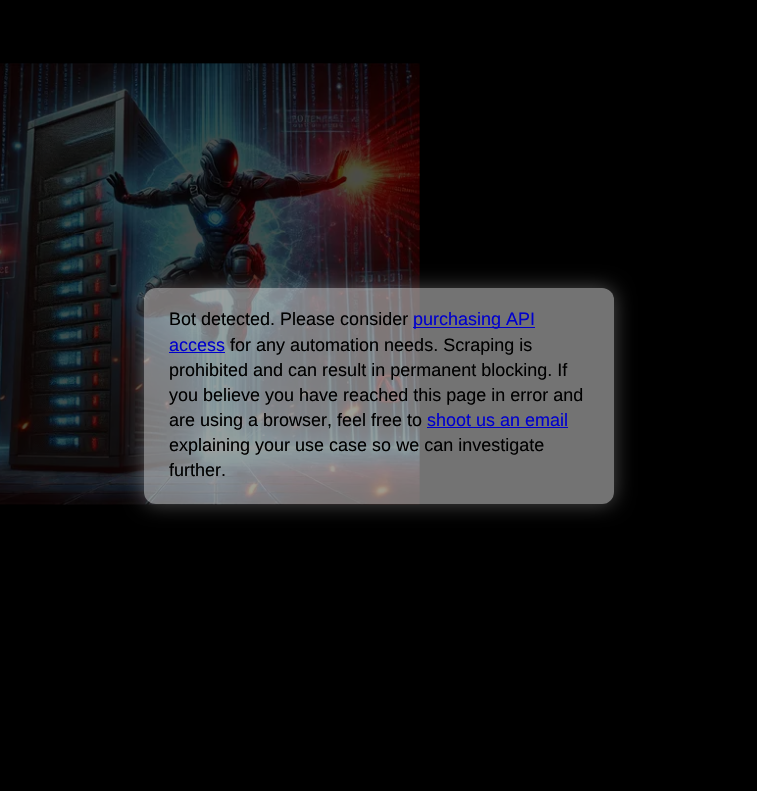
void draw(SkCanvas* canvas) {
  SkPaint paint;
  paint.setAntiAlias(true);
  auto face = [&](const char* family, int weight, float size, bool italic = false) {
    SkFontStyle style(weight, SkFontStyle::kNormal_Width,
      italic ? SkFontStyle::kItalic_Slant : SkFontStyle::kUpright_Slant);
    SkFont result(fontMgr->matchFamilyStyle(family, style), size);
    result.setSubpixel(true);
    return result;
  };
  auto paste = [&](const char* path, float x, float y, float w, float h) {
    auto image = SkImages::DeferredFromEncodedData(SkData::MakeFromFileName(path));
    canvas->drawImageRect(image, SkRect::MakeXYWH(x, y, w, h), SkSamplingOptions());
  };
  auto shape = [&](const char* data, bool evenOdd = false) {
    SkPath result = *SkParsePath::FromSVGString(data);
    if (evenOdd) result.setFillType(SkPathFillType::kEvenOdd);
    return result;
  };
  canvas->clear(0xff000000);
  paste("img/1.png", 0, 63, 420, 442);
  canvas->save();
  canvas->clipPath(shape("M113 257H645V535H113ZM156 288H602C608.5 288 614 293.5 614 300V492C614 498.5 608.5 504 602 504H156C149.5 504 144 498.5 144 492V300C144 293.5 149.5 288 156 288Z", true), true);
  paint.setColor(0x4dffffff);
  paint.setMaskFilter(SkMaskFilter::MakeBlur(kNormal_SkBlurStyle, 10));
  canvas->drawRoundRect(SkRect::MakeXYWH(144, 288, 470, 216), 12, 12, paint);
  paint.setMaskFilter(nullptr);
  canvas->restore();
  paint.setColor(0x73ffffff);
  canvas->drawRoundRect(SkRect::MakeXYWH(144, 288, 470, 216), 12, 12, paint);
  {
    const struct { float x, y, w, h; SkColor color; } items[] = {
      {413, 327, 122, 1, 0xff0000cc},
      {169, 352, 56, 1, 0xff0000cc},
      {427, 427, 141, 1, 0xff0000cc},
    };
    for (auto [x, y, w, h, color] : items) {
      paint.setColor(color);
      canvas->drawRect(SkRect::MakeXYWH(x, y, w, h), paint);
    }
  }
  auto f0 = face("Liberation Sans", 400, 18);
  paint.setColor(0xff000000);
  canvas->drawString("Bot detected. Please consider", 169, 325, f0, paint);
  paint.setColor(0xff0000cc);
  canvas->drawString("purchasing API", 413, 325, f0, paint);
  canvas->drawString("access", 169, 351, f0, paint);
  paint.setColor(0xff000000);
  {
    const struct { const char* s; float x, y; } items[] = {
      {"for any automation needs. Scraping is", 230, 351},
      {"prohibited and can result in permanent blocking. If", 169, 376},
      {"you believe you have reached this page in error and", 169, 401},
      {"are using a browser, feel free to", 169, 426},
    };
    for (auto [s, x, y] : items) {
      canvas->drawString(s, x, y, f0, paint);
    }
  }
  paint.setColor(0xff0000cc);
  canvas->drawString("shoot us an email", 427, 426, f0, paint);
  paint.setColor(0xff000000);
  canvas->drawString("explaining your use case so we can investigate", 169, 451, f0, paint);
  canvas->drawString("further.", 169, 476, f0, paint);
}
